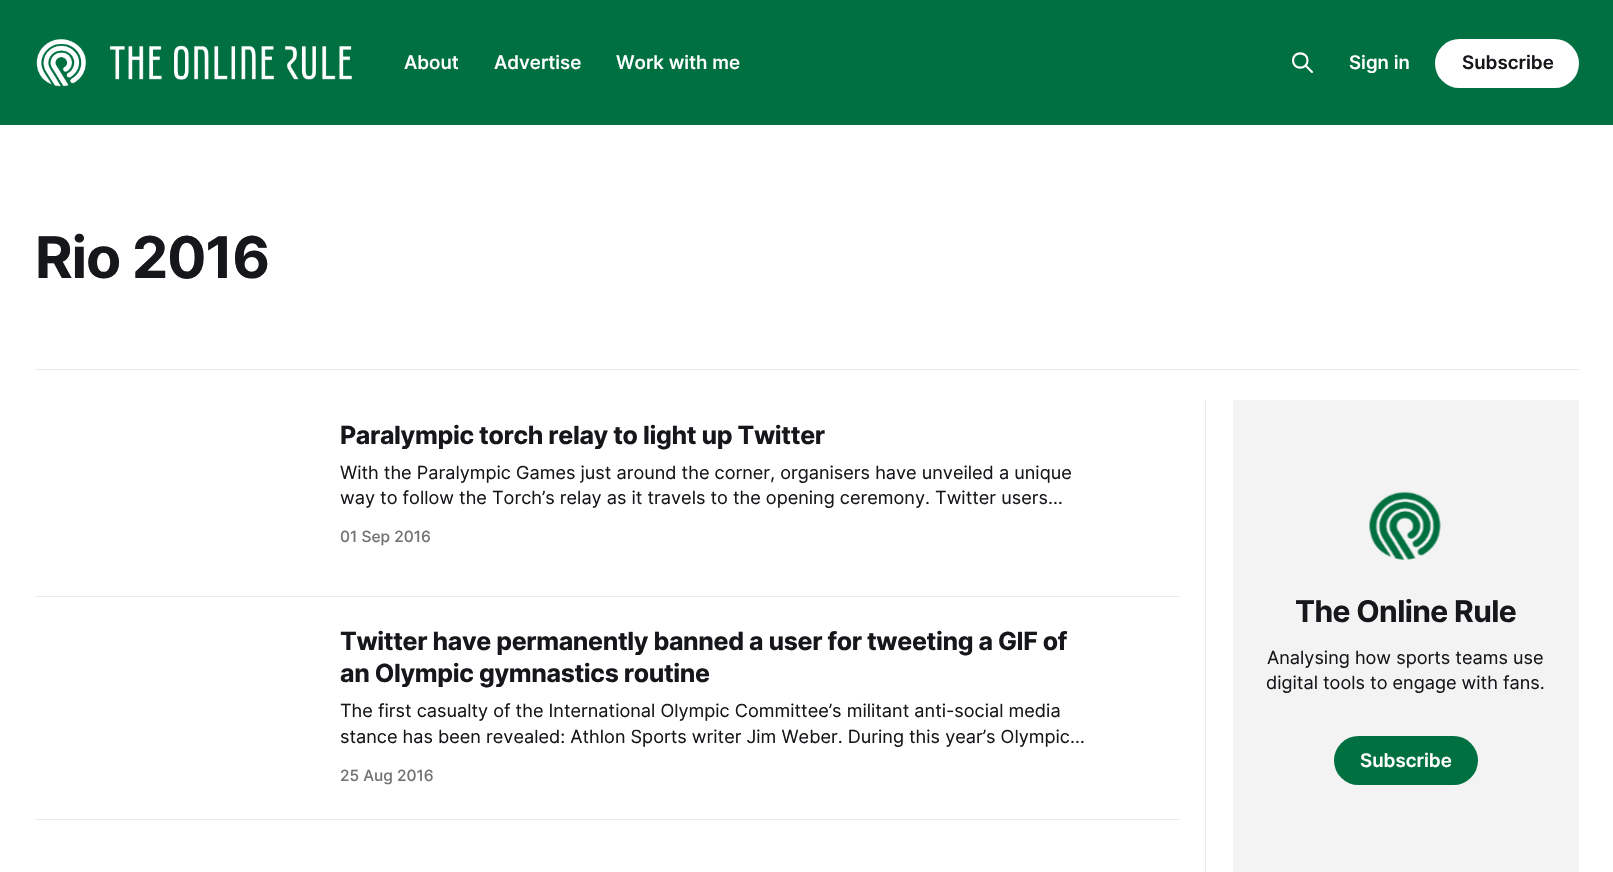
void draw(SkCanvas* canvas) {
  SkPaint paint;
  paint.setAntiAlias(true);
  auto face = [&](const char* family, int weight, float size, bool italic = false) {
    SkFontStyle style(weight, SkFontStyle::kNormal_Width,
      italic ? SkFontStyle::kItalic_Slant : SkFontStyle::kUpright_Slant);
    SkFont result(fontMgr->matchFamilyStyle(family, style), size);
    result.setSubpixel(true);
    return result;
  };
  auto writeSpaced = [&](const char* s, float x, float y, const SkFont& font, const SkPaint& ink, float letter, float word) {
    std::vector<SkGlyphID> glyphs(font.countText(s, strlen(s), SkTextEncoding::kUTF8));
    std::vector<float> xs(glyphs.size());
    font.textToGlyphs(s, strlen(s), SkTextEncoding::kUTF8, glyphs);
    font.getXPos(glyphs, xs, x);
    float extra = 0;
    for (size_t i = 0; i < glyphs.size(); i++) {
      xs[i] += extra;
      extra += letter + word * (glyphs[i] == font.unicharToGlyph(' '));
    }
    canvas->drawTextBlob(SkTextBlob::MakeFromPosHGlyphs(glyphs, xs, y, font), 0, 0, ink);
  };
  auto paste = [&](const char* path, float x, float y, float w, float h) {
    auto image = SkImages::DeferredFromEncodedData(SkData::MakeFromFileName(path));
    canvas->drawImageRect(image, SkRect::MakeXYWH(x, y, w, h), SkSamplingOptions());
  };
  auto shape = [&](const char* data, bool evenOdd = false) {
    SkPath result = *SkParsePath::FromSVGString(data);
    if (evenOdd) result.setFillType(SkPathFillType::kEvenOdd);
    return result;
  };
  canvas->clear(0xffffffff);
  paint.setColor(0xff007041);
  canvas->drawRect(SkRect::MakeXYWH(0, 0, 1613, 125), paint);
  paste("img/1.png", 36, 39, 316, 48);
  paint.setStroke(true);
  paint.setStrokeWidth(2.1f);
  paint.setStrokeCap(SkPaint::kRound_Cap);
  paint.setStrokeJoin(SkPaint::kRound_Join);
  paint.setColor(0xffffffff);
  canvas->drawPath(shape("M1312 72L1305.5 65.5M1307.5 60.5C1307.5 70 1293 70 1293 60.5C1293 51 1307.5 51 1307.5 60.5Z"), paint);
  paint.setStroke(false);
  canvas->drawRoundRect(SkRect::MakeXYWH(1435, 39, 144, 49), 24.5f, 24.5f, paint);
  {
    const struct { float x, y, w, h; SkColor color; } items[] = {
      {35, 369, 1544, 1, 0xffebebeb},
      {35, 596, 1145, 1, 0xffebebeb},
      {35, 819, 1145, 1, 0xffebebeb},
      {1205, 400, 1, 472, 0xffebebeb},
      {1233, 400, 346, 472, 0xfff3f3f3},
    };
    for (auto [x, y, w, h, color] : items) {
      paint.setColor(color);
      canvas->drawRect(SkRect::MakeXYWH(x, y, w, h), paint);
    }
  }
  paste("img/2.png", 1369, 491, 72, 69);
  paint.setColor(0xff007041);
  canvas->drawRoundRect(SkRect::MakeXYWH(1334, 736, 144, 49), 24.5f, 24.5f, paint);
  auto f0 = face("Inter", 500, 18.75f);
  paint.setColor(0xffffffff);
  {
    const struct { const char* s; float x, y; } items[] = {
      {"About", 404, 69},
      {"Advertise", 494, 69},
      {"Work with me", 616, 69},
      {"Sign in", 1349, 69},
    };
    for (auto [s, x, y] : items) {
      canvas->drawString(s, x, y, f0, paint);
    }
  }
  auto f1 = face("Inter", 600, 18.75f);
  paint.setColor(0xff15171a);
  canvas->drawString("Subscribe", 1462, 69, f1, paint);
  auto f2 = face("Inter", 700, 57.5f);
  writeSpaced("Rio 2016", 35, 278, f2, paint, -1.25f, 0);
  auto f3 = face("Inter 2", 700, 24.95f);
  writeSpaced("Paralympic torch relay to light up Twitter", 340, 444, f3, paint, -0.35f, 0);
  auto f4 = face("Inter", 400, 18.1f);
  canvas->drawString("With the Paralympic Games just around the corner, organisers have unveiled a unique", 340, 479, f4, paint);
  canvas->drawString("way to follow the Torch’s relay as it travels to the opening ceremony. Twitter users…", 340, 504, f4, paint);
  auto f5 = face("Inter 2", 500, 15.5f);
  paint.setColor(0xff737373);
  canvas->drawString("01 Sep 2016", 340, 542, f5, paint);
  paint.setColor(0xff15171a);
  writeSpaced("Twitter have permanently banned a user for tweeting a GIF of", 340, 650, f3, paint, -0.35f, 0);
  writeSpaced("an Olympic gymnastics routine", 340, 682, f3, paint, -0.35f, 0);
  canvas->drawString("The first casualty of the International Olympic Committee’s militant anti-social media", 340, 717, f4, paint);
  canvas->drawString("stance has been revealed: Athlon Sports writer Jim Weber. During this year’s Olympic…", 340, 743, f4, paint);
  paint.setColor(0xff737373);
  canvas->drawString("25 Aug 2016", 340, 781, f5, paint);
  auto f6 = face("Inter", 700, 30);
  paint.setColor(0xff15171a);
  writeSpaced("The Online Rule", 1295, 622, f6, paint, -0.6f, 0);
  canvas->drawString("Analysing how sports teams use", 1267, 664, f4, paint);
  canvas->drawString("digital tools to engage with fans.", 1266, 689, f4, paint);
  paint.setColor(0xffffffff);
  canvas->drawString("Subscribe", 1360, 767, f1, paint);
}
